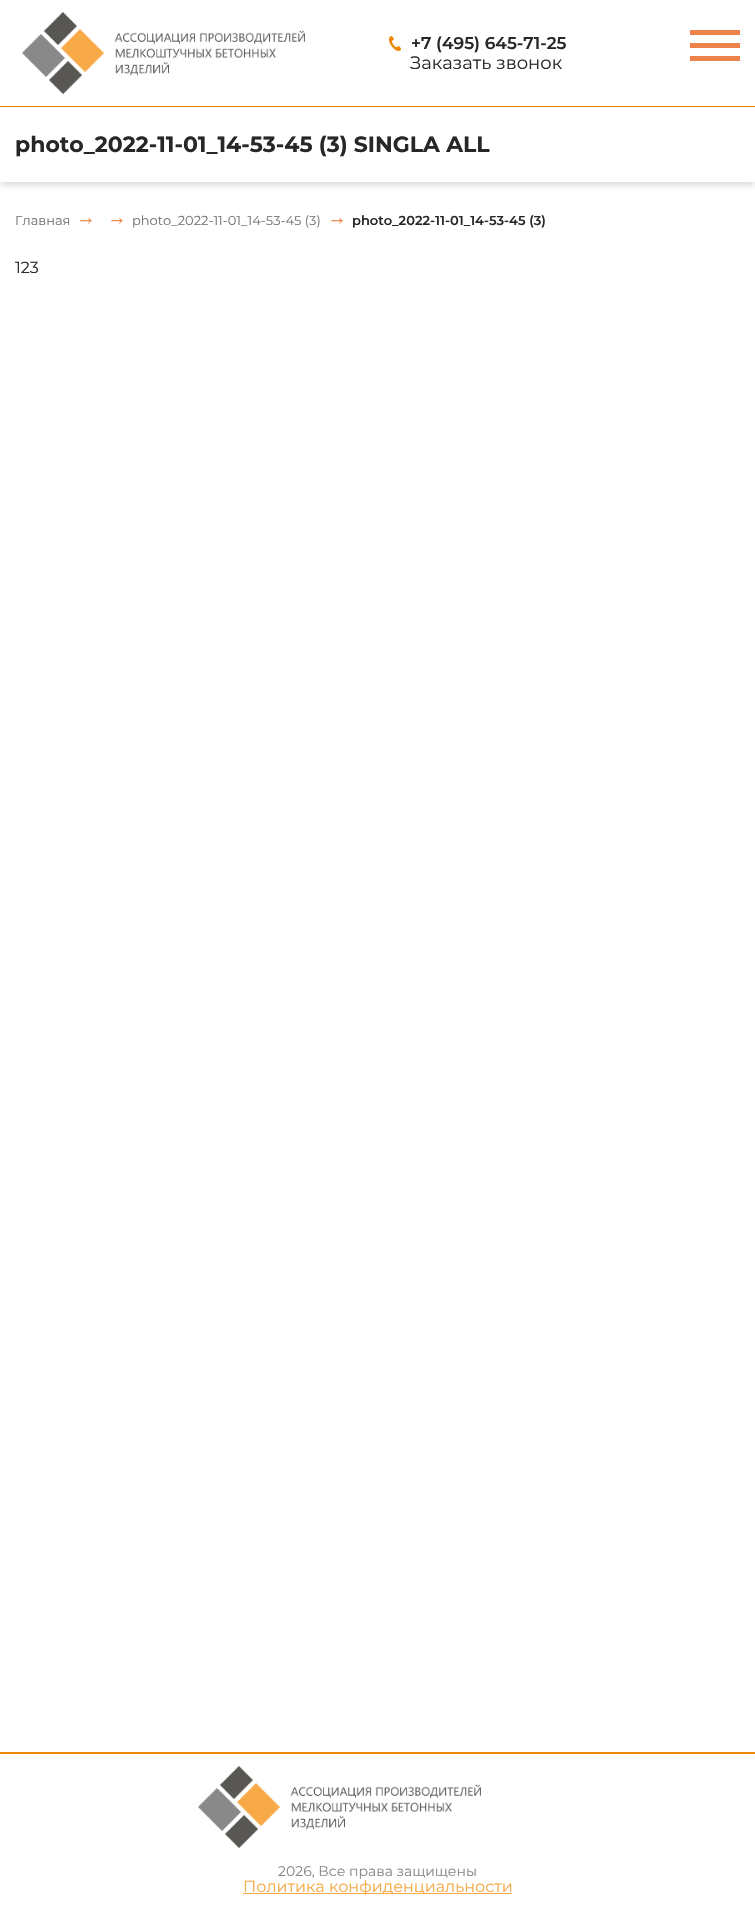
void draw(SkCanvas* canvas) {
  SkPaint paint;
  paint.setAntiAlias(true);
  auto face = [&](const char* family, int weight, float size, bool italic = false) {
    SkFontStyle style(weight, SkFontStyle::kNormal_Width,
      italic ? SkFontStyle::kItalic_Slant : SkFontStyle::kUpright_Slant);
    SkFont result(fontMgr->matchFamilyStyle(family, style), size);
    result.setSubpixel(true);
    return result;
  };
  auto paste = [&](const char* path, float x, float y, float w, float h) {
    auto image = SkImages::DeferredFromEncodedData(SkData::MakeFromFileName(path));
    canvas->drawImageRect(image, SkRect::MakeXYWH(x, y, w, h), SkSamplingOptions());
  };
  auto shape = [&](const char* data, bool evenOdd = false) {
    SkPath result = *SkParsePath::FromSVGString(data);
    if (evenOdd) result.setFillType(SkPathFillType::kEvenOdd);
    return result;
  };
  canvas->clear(0xffffffff);
  paint.setColor(0xffef8a08);
  canvas->drawRect(SkRect::MakeXYWH(0, 106, 755, 1), paint);
  paste("img/1.png", 22, 12, 283, 82);
  paste("img/2.png", 389, 36, 12, 15);
  {
    const struct { float x, y, w, h; SkColor color; } items[] = {
      {690, 30, 50, 5, 0xffed824a},
      {690, 43, 50, 5, 0xffed824a},
      {690, 56, 50, 5, 0xffed824a},
    };
    for (auto [x, y, w, h, color] : items) {
      paint.setColor(color);
      canvas->drawRect(SkRect::MakeXYWH(x, y, w, h), paint);
    }
  }
  canvas->save();
  canvas->clipPath(shape("M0 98H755V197H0ZM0 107H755V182H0Z", true), true);
  paint.setColor(0x291a130e);
  paint.setMaskFilter(SkMaskFilter::MakeBlur(kNormal_SkBlurStyle, 3.5f));
  canvas->drawRect(SkRect::MakeXYWH(0, 110, 755, 75), paint);
  paint.setMaskFilter(nullptr);
  canvas->restore();
  paint.setColor(0xfff6f6f6);
  canvas->drawRect(SkRect::MakeXYWH(0, 107, 755, 1), paint);
  paste("img/3.png", 80, 217, 12, 8);
  paste("img/3.png", 111, 217, 12, 8);
  paste("img/3.png", 331, 217, 12, 8);
  paint.setColor(0xffef8a08);
  canvas->drawRect(SkRect::MakeXYWH(0, 1752, 755, 2), paint);
  paste("img/1.png", 198, 1766, 283, 82);
  paint.setColor(0xfff7aa47);
  canvas->drawRect(SkRect::MakeXYWH(243, 1893, 269, 1), paint);
  auto f0 = face("Montserrat", 600, 17);
  paint.setColor(0xff282626);
  canvas->drawString("+7 (495) 645-71-25", 411, 49, f0, paint);
  auto f1 = face("Montserrat", 400, 18);
  canvas->drawString("Заказать звонок", 410, 69, f1, paint);
  auto f2 = face("Montserrat", 700, 22);
  canvas->drawString("photo_2022-11-01_14-53-45 (3) SINGLA ALL", 15, 152, f2, paint);
  auto f3 = face("Montserrat", 400, 13);
  paint.setColor(0xff757474);
  canvas->drawString("Главная", 15, 225, f3, paint);
  canvas->drawString("photo_2022-11-01_14-53-45 (3)", 132, 225, f3, paint);
  auto f4 = face("Montserrat", 600, 13);
  paint.setColor(0xff282626);
  canvas->drawString("photo_2022-11-01_14-53-45 (3)", 352, 225, f4, paint);
  auto f5 = face("Montserrat", 400, 16);
  canvas->drawString("123", 15, 273, f5, paint);
  auto f6 = face("Montserrat", 400, 14);
  paint.setColor(0xff898989);
  canvas->drawString("2026, Все права защищены", 278, 1876, f6, paint);
  paint.setColor(0xfff7aa47);
  canvas->drawString("Политика конфиденциальности", 243, 1892, f5, paint);
}
